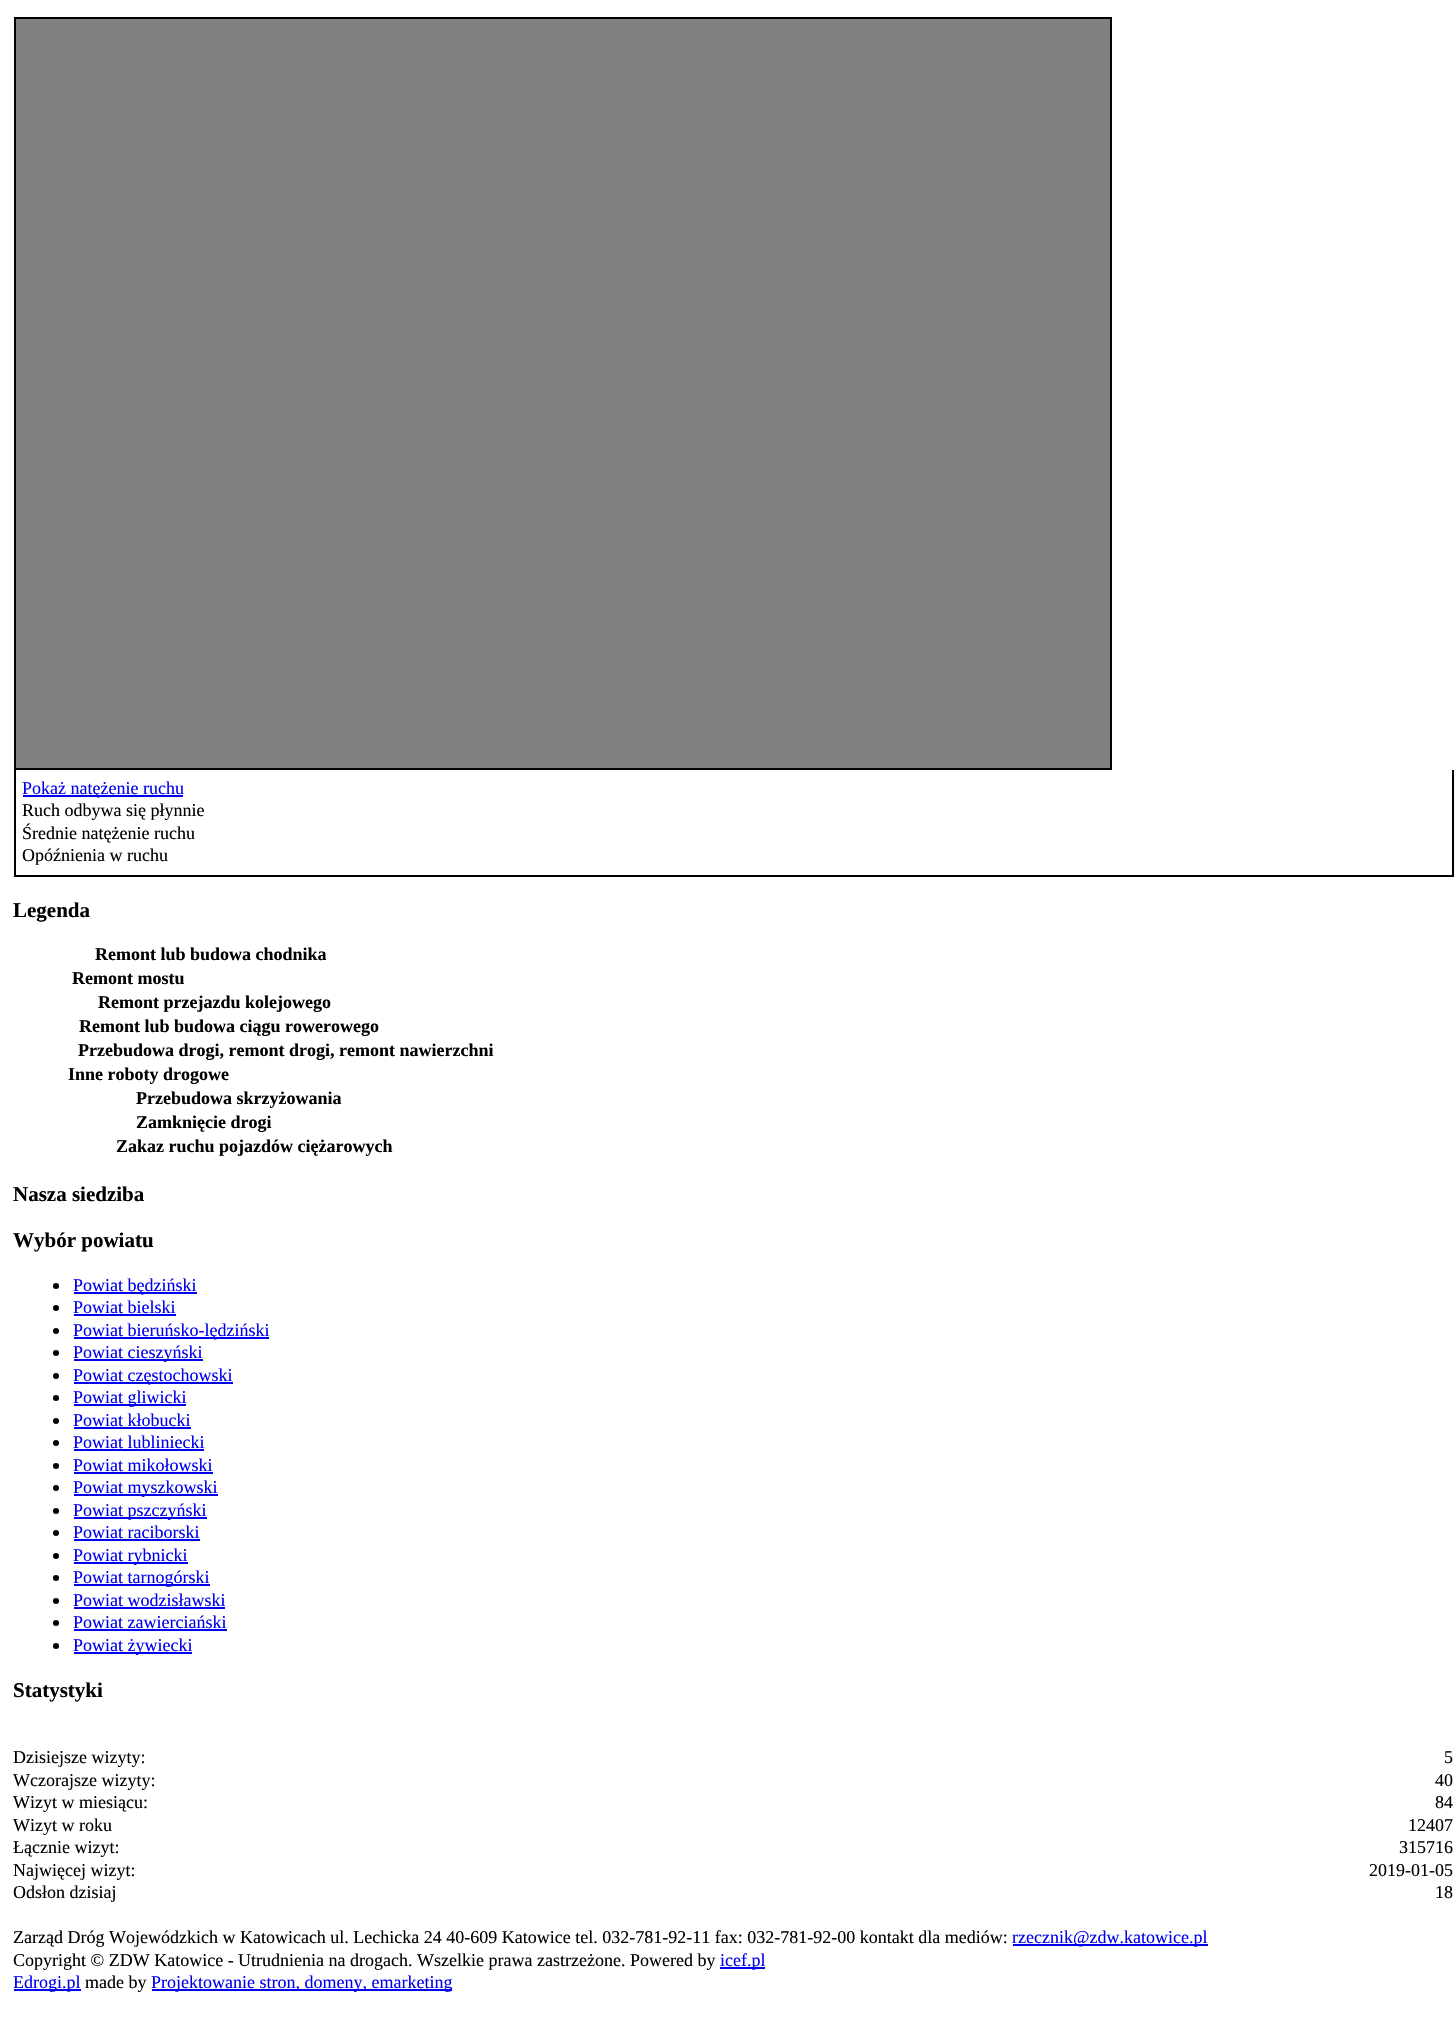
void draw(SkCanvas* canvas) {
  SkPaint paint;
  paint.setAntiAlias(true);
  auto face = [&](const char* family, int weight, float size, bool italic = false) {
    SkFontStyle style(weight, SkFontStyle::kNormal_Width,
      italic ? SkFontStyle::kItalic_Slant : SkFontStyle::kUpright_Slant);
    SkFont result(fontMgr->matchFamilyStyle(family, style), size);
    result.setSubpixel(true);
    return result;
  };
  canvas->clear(0xffffffff);
  paint.setColor(0xff808080);
  canvas->drawRect(SkRect::MakeXYWH(15, 18, 1096, 751), paint);
  paint.setStroke(true);
  paint.setStrokeWidth(2);
  paint.setColor(0xff000000);
  canvas->drawRect(SkRect::MakeXYWH(15, 18, 1096, 751), paint);
  paint.setStroke(false);
  {
    const struct { float x, y, w, h; SkColor color; } items[] = {
      {1452, 770, 2, 106, 0xff000000},
      {14, 875, 1440, 2, 0xff000000},
      {14, 770, 2, 106, 0xff000000},
      {23, 795, 160, 2, 0xff0000ee},
    };
    for (auto [x, y, w, h, color] : items) {
      paint.setColor(color);
      canvas->drawRect(SkRect::MakeXYWH(x, y, w, h), paint);
    }
  }
  paint.setColor(0xff000000);
  canvas->drawCircle(56, 1286, 3, paint);
  paint.setColor(0xff0000ee);
  canvas->drawRect(SkRect::MakeXYWH(74, 1292, 123, 2), paint);
  paint.setColor(0xff000000);
  canvas->drawCircle(56, 1308, 3, paint);
  paint.setColor(0xff0000ee);
  canvas->drawRect(SkRect::MakeXYWH(74, 1314, 102, 2), paint);
  paint.setColor(0xff000000);
  canvas->drawCircle(56, 1331, 3, paint);
  paint.setColor(0xff0000ee);
  canvas->drawRect(SkRect::MakeXYWH(74, 1337, 195, 2), paint);
  paint.setColor(0xff000000);
  canvas->drawCircle(56, 1353, 3, paint);
  paint.setColor(0xff0000ee);
  canvas->drawRect(SkRect::MakeXYWH(74, 1359, 129, 2), paint);
  paint.setColor(0xff000000);
  canvas->drawCircle(56, 1376, 3, paint);
  paint.setColor(0xff0000ee);
  canvas->drawRect(SkRect::MakeXYWH(74, 1382, 159, 2), paint);
  paint.setColor(0xff000000);
  canvas->drawCircle(56, 1398, 3, paint);
  paint.setColor(0xff0000ee);
  canvas->drawRect(SkRect::MakeXYWH(74, 1404, 112, 2), paint);
  paint.setColor(0xff000000);
  canvas->drawCircle(56, 1421, 3, paint);
  paint.setColor(0xff0000ee);
  canvas->drawRect(SkRect::MakeXYWH(74, 1427, 117, 2), paint);
  paint.setColor(0xff000000);
  canvas->drawCircle(56, 1443, 3, paint);
  paint.setColor(0xff0000ee);
  canvas->drawRect(SkRect::MakeXYWH(74, 1449, 130, 2), paint);
  paint.setColor(0xff000000);
  canvas->drawCircle(56, 1466, 3, paint);
  paint.setColor(0xff0000ee);
  canvas->drawRect(SkRect::MakeXYWH(74, 1472, 139, 2), paint);
  paint.setColor(0xff000000);
  canvas->drawCircle(56, 1488, 3, paint);
  paint.setColor(0xff0000ee);
  canvas->drawRect(SkRect::MakeXYWH(74, 1494, 144, 2), paint);
  paint.setColor(0xff000000);
  canvas->drawCircle(56, 1511, 3, paint);
  paint.setColor(0xff0000ee);
  canvas->drawRect(SkRect::MakeXYWH(74, 1517, 133, 2), paint);
  paint.setColor(0xff000000);
  canvas->drawCircle(56, 1533, 3, paint);
  paint.setColor(0xff0000ee);
  canvas->drawRect(SkRect::MakeXYWH(74, 1539, 126, 2), paint);
  paint.setColor(0xff000000);
  canvas->drawCircle(56, 1556, 3, paint);
  paint.setColor(0xff0000ee);
  canvas->drawRect(SkRect::MakeXYWH(74, 1562, 114, 2), paint);
  paint.setColor(0xff000000);
  canvas->drawCircle(56, 1578, 3, paint);
  paint.setColor(0xff0000ee);
  canvas->drawRect(SkRect::MakeXYWH(74, 1584, 136, 2), paint);
  paint.setColor(0xff000000);
  canvas->drawCircle(56, 1601, 3, paint);
  paint.setColor(0xff0000ee);
  canvas->drawRect(SkRect::MakeXYWH(74, 1607, 151, 2), paint);
  paint.setColor(0xff000000);
  canvas->drawCircle(56, 1623, 3, paint);
  paint.setColor(0xff0000ee);
  canvas->drawRect(SkRect::MakeXYWH(74, 1629, 153, 2), paint);
  paint.setColor(0xff000000);
  canvas->drawCircle(56, 1646, 3, paint);
  {
    const struct { float x, y, w, h; SkColor color; } items[] = {
      {74, 1652, 118, 2, 0xff0000ee},
      {1013, 1944, 195, 2, 0xff0000ee},
      {720, 1967, 45, 2, 0xff0000ee},
      {14, 1989, 67, 2, 0xff0000ee},
      {152, 1989, 300, 2, 0xff0000ee},
    };
    for (auto [x, y, w, h, color] : items) {
      paint.setColor(color);
      canvas->drawRect(SkRect::MakeXYWH(x, y, w, h), paint);
    }
  }
  auto f0 = face("Liberation Serif", 400, 18);
  canvas->drawString("Pokaż natężenie ruchu", 22, 794, f0, paint);
  paint.setColor(0xff000000);
  {
    const struct { const char* s; float x, y; } items[] = {
      {"Ruch odbywa się płynnie", 22, 816},
      {"Średnie natężenie ruchu", 22, 839},
      {"Opóźnienia w ruchu", 22, 861},
    };
    for (auto [s, x, y] : items) {
      canvas->drawString(s, x, y, f0, paint);
    }
  }
  auto f1 = face("Liberation Serif", 700, 21);
  canvas->drawString("Legenda", 13, 917, f1, paint);
  auto f2 = face("Liberation Serif", 700, 18);
  {
    const struct { const char* s; float x, y; } items[] = {
      {"Remont lub budowa chodnika", 95, 960},
      {"Remont mostu", 72, 984},
      {"Remont przejazdu kolejowego", 98, 1008},
      {"Remont lub budowa ciągu rowerowego", 79, 1032},
      {"Przebudowa drogi, remont drogi, remont nawierzchni", 78, 1056},
      {"Inne roboty drogowe", 68, 1080},
      {"Przebudowa skrzyżowania", 136, 1104},
      {"Zamknięcie drogi", 136, 1128},
      {"Zakaz ruchu pojazdów ciężarowych", 116, 1152},
    };
    for (auto [s, x, y] : items) {
      canvas->drawString(s, x, y, f2, paint);
    }
  }
  canvas->drawString("Nasza siedziba", 13, 1201, f1, paint);
  canvas->drawString("Wybór powiatu", 13, 1247, f1, paint);
  paint.setColor(0xff0000ee);
  {
    const struct { const char* s; float x, y; } items[] = {
      {"Powiat będziński", 73, 1291},
      {"Powiat bielski", 73, 1313},
      {"Powiat bieruńsko-lędziński", 73, 1336},
      {"Powiat cieszyński", 73, 1358},
      {"Powiat częstochowski", 73, 1381},
      {"Powiat gliwicki", 73, 1403},
      {"Powiat kłobucki", 73, 1426},
      {"Powiat lubliniecki", 73, 1448},
      {"Powiat mikołowski", 73, 1471},
      {"Powiat myszkowski", 73, 1493},
      {"Powiat pszczyński", 73, 1516},
      {"Powiat raciborski", 73, 1538},
      {"Powiat rybnicki", 73, 1561},
      {"Powiat tarnogórski", 73, 1583},
      {"Powiat wodzisławski", 73, 1606},
      {"Powiat zawierciański", 73, 1628},
      {"Powiat żywiecki", 73, 1651},
    };
    for (auto [s, x, y] : items) {
      canvas->drawString(s, x, y, f0, paint);
    }
  }
  paint.setColor(0xff000000);
  canvas->drawString("Statystyki", 13, 1697, f1, paint);
  {
    const struct { const char* s; float x, y; } items[] = {
      {"Dzisiejsze wizyty:", 13, 1763},
      {"5", 1444, 1763},
      {"Wczorajsze wizyty:", 13, 1786},
      {"40", 1435, 1786},
      {"Wizyt w miesiącu:", 13, 1808},
      {"84", 1435, 1808},
      {"Wizyt w roku", 13, 1831},
      {"12407", 1408, 1831},
      {"Łącznie wizyt:", 13, 1853},
      {"315716", 1399, 1853},
      {"Najwięcej wizyt:", 13, 1876},
      {"2019-01-05", 1369, 1876},
      {"Odsłon dzisiaj", 13, 1898},
      {"18", 1435, 1898},
      {"Zarząd Dróg Wojewódzkich w Katowicach ul. Lechicka 24 40-609 Katowice tel. 032-781-92-11 fax: 032-781-92-00 kontakt dla mediów:", 13, 1943},
    };
    for (auto [s, x, y] : items) {
      canvas->drawString(s, x, y, f0, paint);
    }
  }
  paint.setColor(0xff0000ee);
  canvas->drawString("rzecznik@zdw.katowice.pl", 1012, 1943, f0, paint);
  paint.setColor(0xff000000);
  canvas->drawString("Copyright © ZDW Katowice - Utrudnienia na drogach. Wszelkie prawa zastrzeżone. Powered by", 13, 1966, f0, paint);
  paint.setColor(0xff0000ee);
  canvas->drawString("icef.pl", 720, 1966, f0, paint);
  canvas->drawString("Edrogi.pl", 13, 1988, f0, paint);
  paint.setColor(0xff000000);
  canvas->drawString("made by", 85, 1988, f0, paint);
  paint.setColor(0xff0000ee);
  canvas->drawString("Projektowanie stron, domeny, emarketing", 151, 1988, f0, paint);
}
